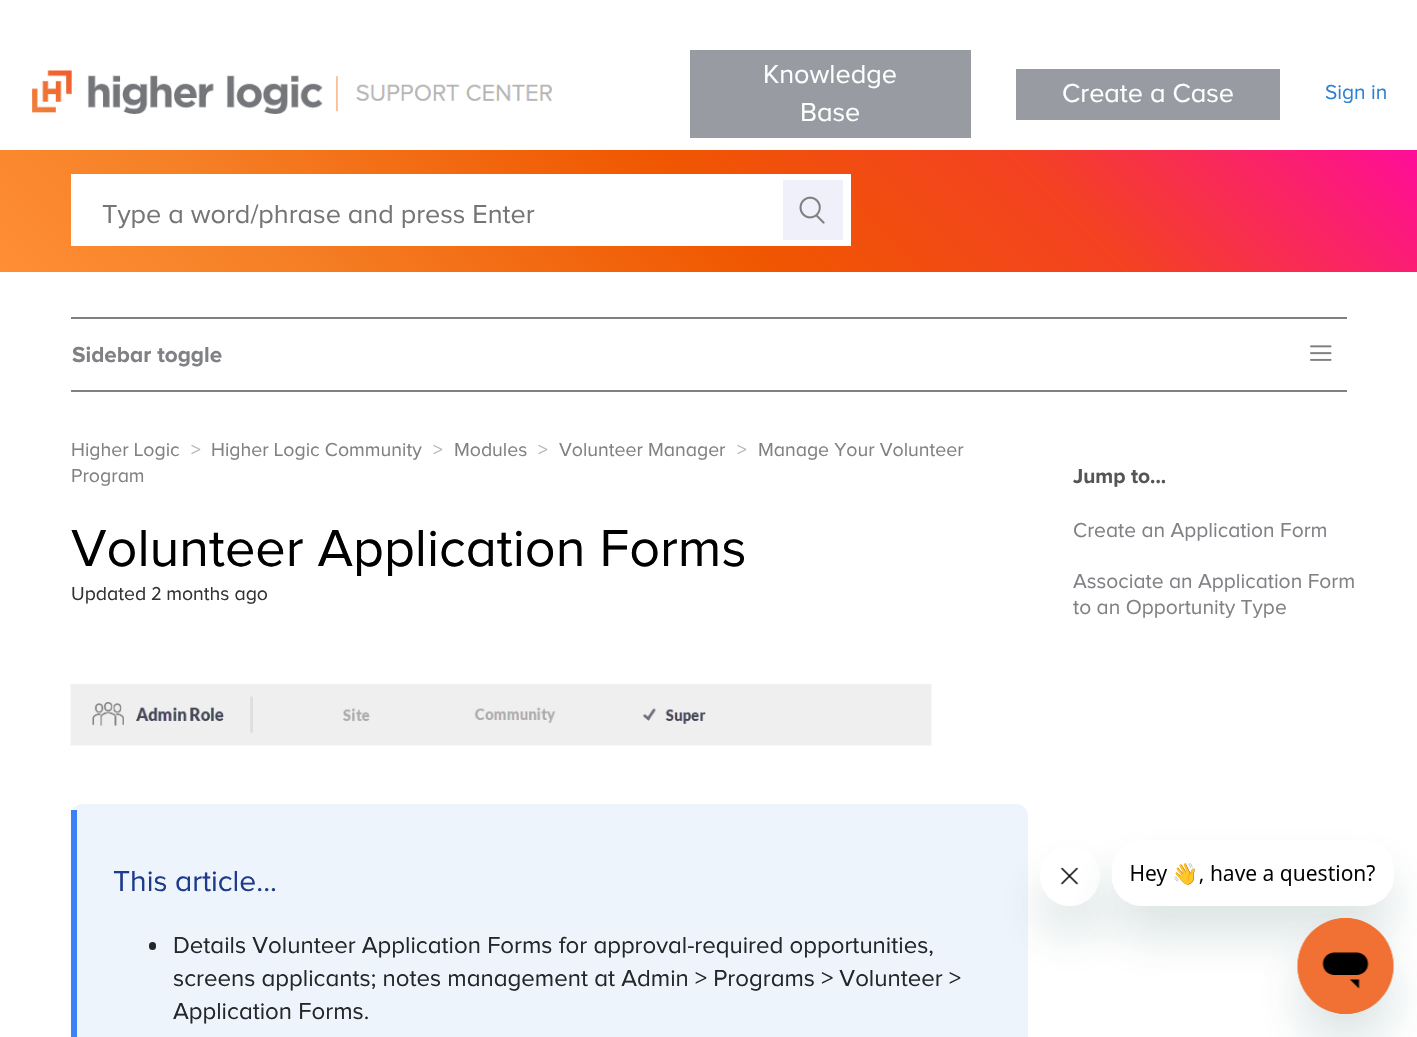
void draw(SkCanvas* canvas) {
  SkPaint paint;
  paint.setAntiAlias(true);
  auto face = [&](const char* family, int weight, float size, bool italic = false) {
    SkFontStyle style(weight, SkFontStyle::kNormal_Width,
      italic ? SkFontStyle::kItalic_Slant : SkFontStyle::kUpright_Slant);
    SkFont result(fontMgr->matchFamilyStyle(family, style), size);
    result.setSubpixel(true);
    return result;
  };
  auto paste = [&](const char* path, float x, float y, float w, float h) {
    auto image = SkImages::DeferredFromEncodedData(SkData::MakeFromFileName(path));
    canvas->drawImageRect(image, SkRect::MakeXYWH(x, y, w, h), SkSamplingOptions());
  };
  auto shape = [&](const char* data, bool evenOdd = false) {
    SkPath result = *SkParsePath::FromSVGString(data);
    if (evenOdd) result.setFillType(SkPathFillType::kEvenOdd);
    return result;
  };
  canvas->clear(0xffffffff);
  paste("img/1.png", 32, 70, 520, 44);
  paint.setColor(0xff999ba2);
  canvas->drawRect(SkRect::MakeXYWH(690, 50, 281, 88), paint);
  canvas->drawRect(SkRect::MakeXYWH(1016, 69, 264, 51), paint);
  {
    const SkColor colors[] = {0xffff8e35, 0xfff58026, 0xfff05700, 0xfff44123, 0xffff0d99};
    const float stops[] = {0, 0.19f, 0.5f, 0.74f, 1};
    const SkPoint ends[] = {{324, 596}, {1094, -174}};
    paint.setShader(SkGradientShader::MakeLinear(ends, colors, stops, 5, SkTileMode::kClamp));
    paint.setAlpha(255);
  }
  canvas->drawRect(SkRect::MakeXYWH(0, 150, 1417, 122), paint);
  paint.setShader(nullptr);
  paint.setColor(0xffffffff);
  canvas->drawRect(SkRect::MakeXYWH(71, 174, 780, 72), paint);
  paint.setColor(0xfff0f0fa);
  canvas->drawRect(SkRect::MakeXYWH(783, 180, 60, 60), paint);
  paste("img/2.png", 799, 196, 26, 28);
  paint.setColor(0xff808080);
  canvas->drawRect(SkRect::MakeXYWH(71, 317, 1276, 2), paint);
  canvas->drawRect(SkRect::MakeXYWH(71, 390, 1276, 2), paint);
  paste("img/3.png", 1310, 345, 22, 16);
  paste("img/4.png", 70, 684, 862, 62);
  paint.setColor(0xffeef4fb);
  canvas->drawRoundRect(SkRect::MakeXYWH(71, 804, 957, 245), 12, 12, paint);
  paint.setColor(0xff3b82f6);
  canvas->drawRect(SkRect::MakeXYWH(71, 810, 6, 227), paint);
  paint.setColor(0xff242729);
  canvas->drawRoundRect(SkRect::MakeXYWH(149, 942, 7, 8), 3.5f, 3.5f, paint);
  canvas->save();
  canvas->clipPath(shape("M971 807H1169V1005H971ZM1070 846C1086.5 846 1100 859.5 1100 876C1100 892.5 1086.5 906 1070 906C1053.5 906 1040 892.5 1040 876C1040 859.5 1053.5 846 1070 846Z", true), true);
  paint.setColor(0x2617494d);
  paint.setMaskFilter(SkMaskFilter::MakeBlur(kNormal_SkBlurStyle, 22.5f));
  canvas->drawRoundRect(SkRect::MakeXYWH(1040, 876, 60, 60), 30, 30, paint);
  paint.setMaskFilter(nullptr);
  canvas->restore();
  paste("img/6.png", 1060, 867, 19, 18);
  canvas->save();
  canvas->clipPath(shape("M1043 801H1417V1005H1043ZM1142 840H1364C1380.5 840 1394 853.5 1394 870V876C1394 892.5 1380.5 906 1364 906H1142C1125.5 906 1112 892.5 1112 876V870C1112 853.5 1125.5 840 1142 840Z", true), true);
  paint.setMaskFilter(SkMaskFilter::MakeBlur(kNormal_SkBlurStyle, 22.5f));
  canvas->drawRoundRect(SkRect::MakeXYWH(1112, 870, 282, 66), 30, 30, paint);
  paint.setMaskFilter(nullptr);
  canvas->restore();
  paste("img/5.png", 1112, 863, 263, 38);
  paint.setMaskFilter(SkMaskFilter::MakeBlur(kNormal_SkBlurStyle, 22.5f));
  canvas->drawRoundRect(SkRect::MakeXYWH(1298, 948, 96, 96), 48, 48, paint);
  paint.setMaskFilter(nullptr);
  paste("img/7.png", 1297, 918, 97, 96);
  auto f0 = face("Proxima Nova", 400, 27);
  paint.setColor(0xffffffff);
  {
    const struct { const char* s; float x, y; } items[] = {
      {"Knowledge", 763, 83},
      {"Base", 800, 121},
      {"Create a Case", 1062, 102},
    };
    for (auto [s, x, y] : items) {
      canvas->drawString(s, x, y, f0, paint);
    }
  }
  auto f1 = face("Proxima Nova", 400, 21);
  paint.setColor(0xff2e82d1);
  canvas->drawString("Sign in", 1325, 99, f1, paint);
  paint.setColor(0xff757575);
  canvas->drawString("Type a word/phrase and press Enter", 102, 223, f0, paint);
  auto f2 = face("Proxima Nova", 700, 22.5f);
  paint.setColor(0xff808184);
  canvas->drawString("Sidebar toggle", 72, 362, f2, paint);
  auto f3 = face("Proxima Nova", 400, 19.5f);
  canvas->drawString("Higher Logic", 71, 456, f3, paint);
  paint.setColor(0xffb4b4b4);
  canvas->drawString(">", 191, 456, f3, paint);
  paint.setColor(0xff808184);
  canvas->drawString("Higher Logic Community", 211, 456, f3, paint);
  paint.setColor(0xffb4b4b4);
  canvas->drawString(">", 433, 456, f3, paint);
  paint.setColor(0xff808184);
  canvas->drawString("Modules", 454, 456, f3, paint);
  paint.setColor(0xffb4b4b4);
  canvas->drawString(">", 538, 456, f3, paint);
  paint.setColor(0xff808184);
  canvas->drawString("Volunteer Manager", 559, 456, f3, paint);
  paint.setColor(0xffb4b4b4);
  canvas->drawString(">", 737, 456, f3, paint);
  paint.setColor(0xff808184);
  canvas->drawString("Manage Your Volunteer", 758, 456, f3, paint);
  canvas->drawString("Program", 71, 482, f3, paint);
  auto f4 = face("Proxima Nova", 400, 54);
  paint.setColor(0xff000000);
  canvas->drawString("Volunteer Application Forms", 71, 566, f4, paint);
  paint.setColor(0xff333333);
  canvas->drawString("Updated 2 months ago", 71, 600, f3, paint);
  auto f5 = face("Proxima Nova", 400, 30);
  paint.setColor(0xff1e3a8a);
  canvas->drawString("This article...", 113, 891, f5, paint);
  auto f6 = face("Proxima Nova", 400, 24);
  paint.setColor(0xff242729);
  {
    const struct { const char* s; float x, y; } items[] = {
      {"Details Volunteer Application Forms for approval-required opportunities,", 173, 953},
      {"screens applicants; notes management at Admin > Programs > Volunteer >", 173, 986},
      {"Application Forms.", 173, 1019},
    };
    for (auto [s, x, y] : items) {
      canvas->drawString(s, x, y, f6, paint);
    }
  }
  auto f7 = face("Proxima Nova", 700, 21);
  paint.setColor(0xff555555);
  canvas->drawString("Jump to...", 1073, 483, f7, paint);
  paint.setColor(0xff808184);
  {
    const struct { const char* s; float x, y; } items[] = {
      {"Create an Application Form", 1073, 537},
      {"Associate an Application Form", 1073, 588},
      {"to an Opportunity Type", 1073, 614},
    };
    for (auto [s, x, y] : items) {
      canvas->drawString(s, x, y, f1, paint);
    }
  }
}
